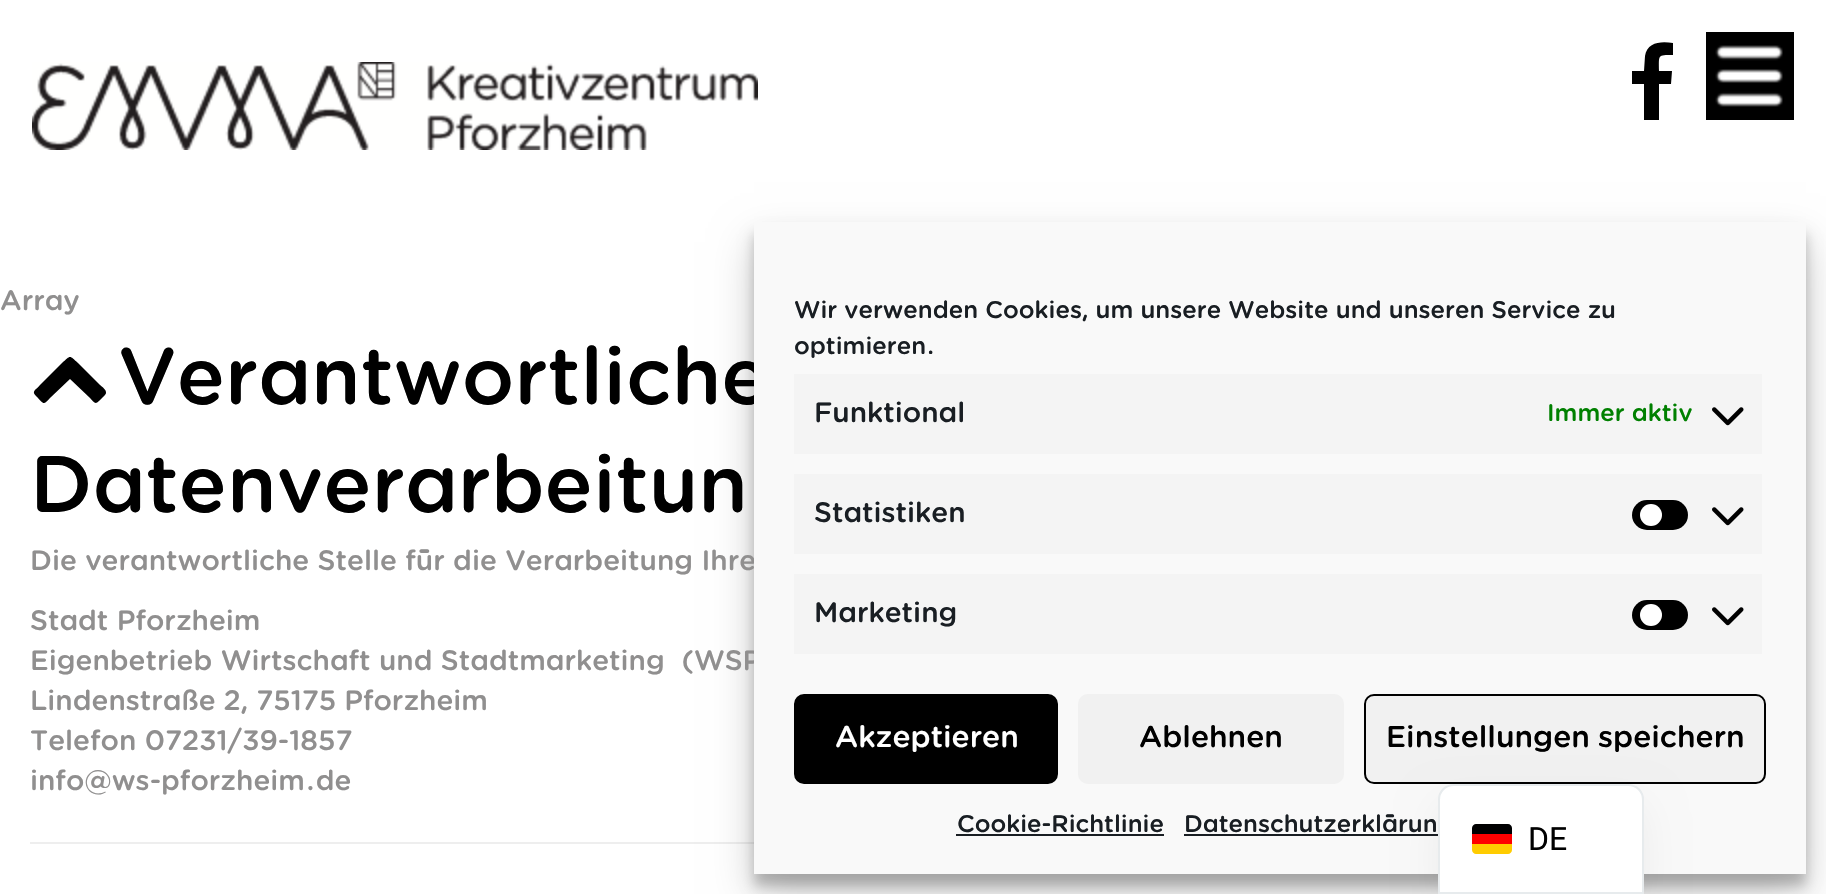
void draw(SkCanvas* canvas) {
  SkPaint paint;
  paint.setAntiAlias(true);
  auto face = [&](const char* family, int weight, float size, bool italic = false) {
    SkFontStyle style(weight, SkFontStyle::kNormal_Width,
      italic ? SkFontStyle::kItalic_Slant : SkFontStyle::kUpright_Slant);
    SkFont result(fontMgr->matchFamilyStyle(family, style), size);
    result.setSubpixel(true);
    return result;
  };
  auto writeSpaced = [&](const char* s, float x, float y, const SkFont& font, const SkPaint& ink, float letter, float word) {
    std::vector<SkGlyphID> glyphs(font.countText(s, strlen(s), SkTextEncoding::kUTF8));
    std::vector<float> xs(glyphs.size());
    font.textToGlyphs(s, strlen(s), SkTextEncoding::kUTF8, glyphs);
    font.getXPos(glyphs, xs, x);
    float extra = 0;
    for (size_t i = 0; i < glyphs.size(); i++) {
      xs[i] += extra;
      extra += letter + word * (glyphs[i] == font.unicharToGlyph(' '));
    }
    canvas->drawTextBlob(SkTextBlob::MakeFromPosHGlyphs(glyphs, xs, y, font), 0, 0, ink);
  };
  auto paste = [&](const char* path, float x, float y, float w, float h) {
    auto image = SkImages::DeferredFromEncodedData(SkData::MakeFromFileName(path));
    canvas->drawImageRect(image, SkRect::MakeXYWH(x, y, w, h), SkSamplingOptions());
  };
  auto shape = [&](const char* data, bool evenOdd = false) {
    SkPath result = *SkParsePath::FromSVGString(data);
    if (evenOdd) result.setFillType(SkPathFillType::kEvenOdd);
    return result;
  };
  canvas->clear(0xffffffff);
  paste("img/1.png", 32, 62, 726, 88);
  paint.setColor(0xff000000);
  canvas->drawPath(shape("M1673 43V55C1657 55 1659 55 1659 71H1672L1671 84H1659V120H1644V84H1632V71H1644L1645 56C1647 42 1661 41 1673 43Z"), paint);
  canvas->drawRect(SkRect::MakeXYWH(1706, 32, 88, 88), paint);
  paste("img/2.png", 1715, 45, 68, 62);
  canvas->drawPath(shape("M105 395L99 401C95 405 94 402 90 398L70 379L50 398C43 406 44 404 36 396C31 391 36 390 40 385L62 363C71 355 69 355 78 363L100 385C101 386 109 391 105 395Z"), paint);
  paint.setColor(0xffeeeeee);
  canvas->drawRect(SkRect::MakeXYWH(30, 842, 724, 2), paint);
  paint.setColor(0x3b000000);
  paint.setMaskFilter(SkMaskFilter::MakeBlur(kNormal_SkBlurStyle, 6));
  canvas->drawRect(SkRect::MakeXYWH(754, 234, 1052, 652), paint);
  paint.setMaskFilter(nullptr);
  paint.setColor(0x30000000);
  paint.setMaskFilter(SkMaskFilter::MakeBlur(kNormal_SkBlurStyle, 20));
  canvas->drawRect(SkRect::MakeXYWH(754, 242, 1052, 652), paint);
  paint.setMaskFilter(nullptr);
  auto f0 = face("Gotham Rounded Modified", 500, 28);
  paint.setColor(0xff908f8f);
  canvas->drawString("Array", 0, 310, f0, paint);
  auto f1 = face("Gotham Rounded Modified", 500, 80);
  paint.setColor(0xff000000);
  canvas->drawString("Verantwortliche", 118, 404, f1, paint);
  canvas->drawString("Datenverarbeitun", 30, 512, f1, paint);
  paint.setColor(0xff908f8f);
  {
    const struct { const char* s; float x, y; } items[] = {
      {"Die verantwortliche Stelle für die Verarbeitung Ihre", 30, 570},
      {"Stadt Pforzheim", 30, 630},
      {"Eigenbetrieb Wirtschaft und Stadtmarketing  (WSP", 30, 670},
    };
    for (auto [s, x, y] : items) {
      canvas->drawString(s, x, y, f0, paint);
    }
  }
  writeSpaced("Lindenstraße 2, 75175 Pforzheim", 30, 710, f0, paint, 0, -0.5f);
  canvas->drawString("Telefon 07231/39-1857", 30, 750, f0, paint);
  canvas->drawString("info@ws-pforzheim.de", 30, 790, f0, paint);
  paint.setColor(0xfff9f9f9);
  canvas->drawRect(SkRect::MakeXYWH(754, 222, 1052, 652), paint);
  auto f2 = face("Gotham Rounded Modified", 500, 24);
  paint.setColor(0xff191e23);
  canvas->drawString("Wir verwenden Cookies, um unsere Website und unseren Service zu", 794, 318, f2, paint);
  canvas->drawString("optimieren.", 794, 354, f2, paint);
  paint.setColor(0xfff4f4f4);
  canvas->drawRect(SkRect::MakeXYWH(794, 374, 968, 80), paint);
  paint.setColor(0xff191e23);
  canvas->drawString("Funktional", 814, 422, f0, paint);
  paint.setColor(0xff008000);
  canvas->drawString("Immer aktiv", 1547, 421, f2, paint);
  paste("img/3.png", 1712, 407, 32, 19);
  paint.setColor(0xfff4f4f4);
  canvas->drawRect(SkRect::MakeXYWH(794, 474, 968, 80), paint);
  paint.setColor(0xff191e23);
  canvas->drawString("Statistiken", 814, 522, f0, paint);
  paint.setColor(0xff000000);
  canvas->drawRoundRect(SkRect::MakeXYWH(1632, 500, 56, 30), 15, 15, paint);
  paint.setColor(0xffffffff);
  canvas->drawCircle(1651, 515, 11, paint);
  paste("img/3.png", 1712, 507, 32, 19);
  paint.setColor(0xfff4f4f4);
  canvas->drawRect(SkRect::MakeXYWH(794, 574, 968, 80), paint);
  paint.setColor(0xff191e23);
  canvas->drawString("Marketing", 814, 622, f0, paint);
  paint.setColor(0xff000000);
  canvas->drawRoundRect(SkRect::MakeXYWH(1632, 600, 56, 30), 15, 15, paint);
  paint.setColor(0xffffffff);
  canvas->drawCircle(1651, 615, 11, paint);
  paste("img/3.png", 1712, 607, 32, 19);
  paint.setColor(0xff000000);
  canvas->drawRoundRect(SkRect::MakeXYWH(795, 695, 262, 88), 9, 9, paint);
  paint.setStroke(true);
  paint.setStrokeWidth(2);
  canvas->drawRoundRect(SkRect::MakeXYWH(795, 695, 262, 88), 9, 9, paint);
  auto f3 = face("Gotham Rounded Modified", 500, 30);
  paint.setStroke(false);
  paint.setColor(0xffffffff);
  canvas->drawString("Akzeptieren", 835, 747, f3, paint);
  paint.setColor(0xfff1f1f1);
  canvas->drawRoundRect(SkRect::MakeXYWH(1078, 694, 266, 90), 10, 10, paint);
  paint.setColor(0xff000000);
  canvas->drawString("Ablehnen", 1139, 747, f3, paint);
  paint.setColor(0xfff1f1f1);
  canvas->drawRoundRect(SkRect::MakeXYWH(1365, 695, 400, 88), 9, 9, paint);
  paint.setStroke(true);
  paint.setColor(0xff000000);
  canvas->drawRoundRect(SkRect::MakeXYWH(1365, 695, 400, 88), 9, 9, paint);
  paint.setStroke(false);
  writeSpaced("Einstellungen speichern", 1386, 747, f3, paint, 0, -1);
  paint.setColor(0xff191e23);
  canvas->drawString("Cookie-Richtlinie", 957, 832, f2, paint);
  canvas->drawRect(SkRect::MakeXYWH(956, 834, 208, 2), paint);
  canvas->drawString("Datenschutzerklärun", 1184, 832, f2, paint);
  canvas->drawRect(SkRect::MakeXYWH(1184, 834, 254, 2), paint);
  paint.setColor(0x0d000000);
  paint.setMaskFilter(SkMaskFilter::MakeBlur(kNormal_SkBlurStyle, 20));
  canvas->drawRoundRect(SkRect::MakeXYWH(1438, 804, 206, 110), 16, 16, paint);
  paint.setMaskFilter(nullptr);
  paint.setColor(0xffffffff);
  canvas->drawPath(shape("M1454 784H1628C1637 784 1644 791 1644 800V894H1438V800C1438 791 1445 784 1454 784Z"), paint);
  paint.setStroke(true);
  paint.setColor(0x1a143852);
  canvas->drawPath(shape("M1454 785H1628C1636.5 785 1643 791.5 1643 800V893H1439V800C1439 791.5 1445.5 785 1454 785Z"), paint);
  paint.setStroke(false);
  paint.setColor(0xffffcc00);
  canvas->drawPath(shape("M1472 844H1512V850C1512 852 1510 854 1508 854H1476C1474 854 1472 852 1472 850Z"), paint);
  paint.setColor(0xff000001);
  canvas->drawPath(shape("M1476 824H1508C1510 824 1512 826 1512 828V834H1472V828C1472 826 1474 824 1476 824Z"), paint);
  paint.setColor(0xffff0000);
  canvas->drawRect(SkRect::MakeXYWH(1472, 834, 40, 10), paint);
  auto f4 = face("Roboto", 400, 32);
  paint.setColor(0xff000000);
  canvas->drawString("DE", 1528, 850, f4, paint);
}
